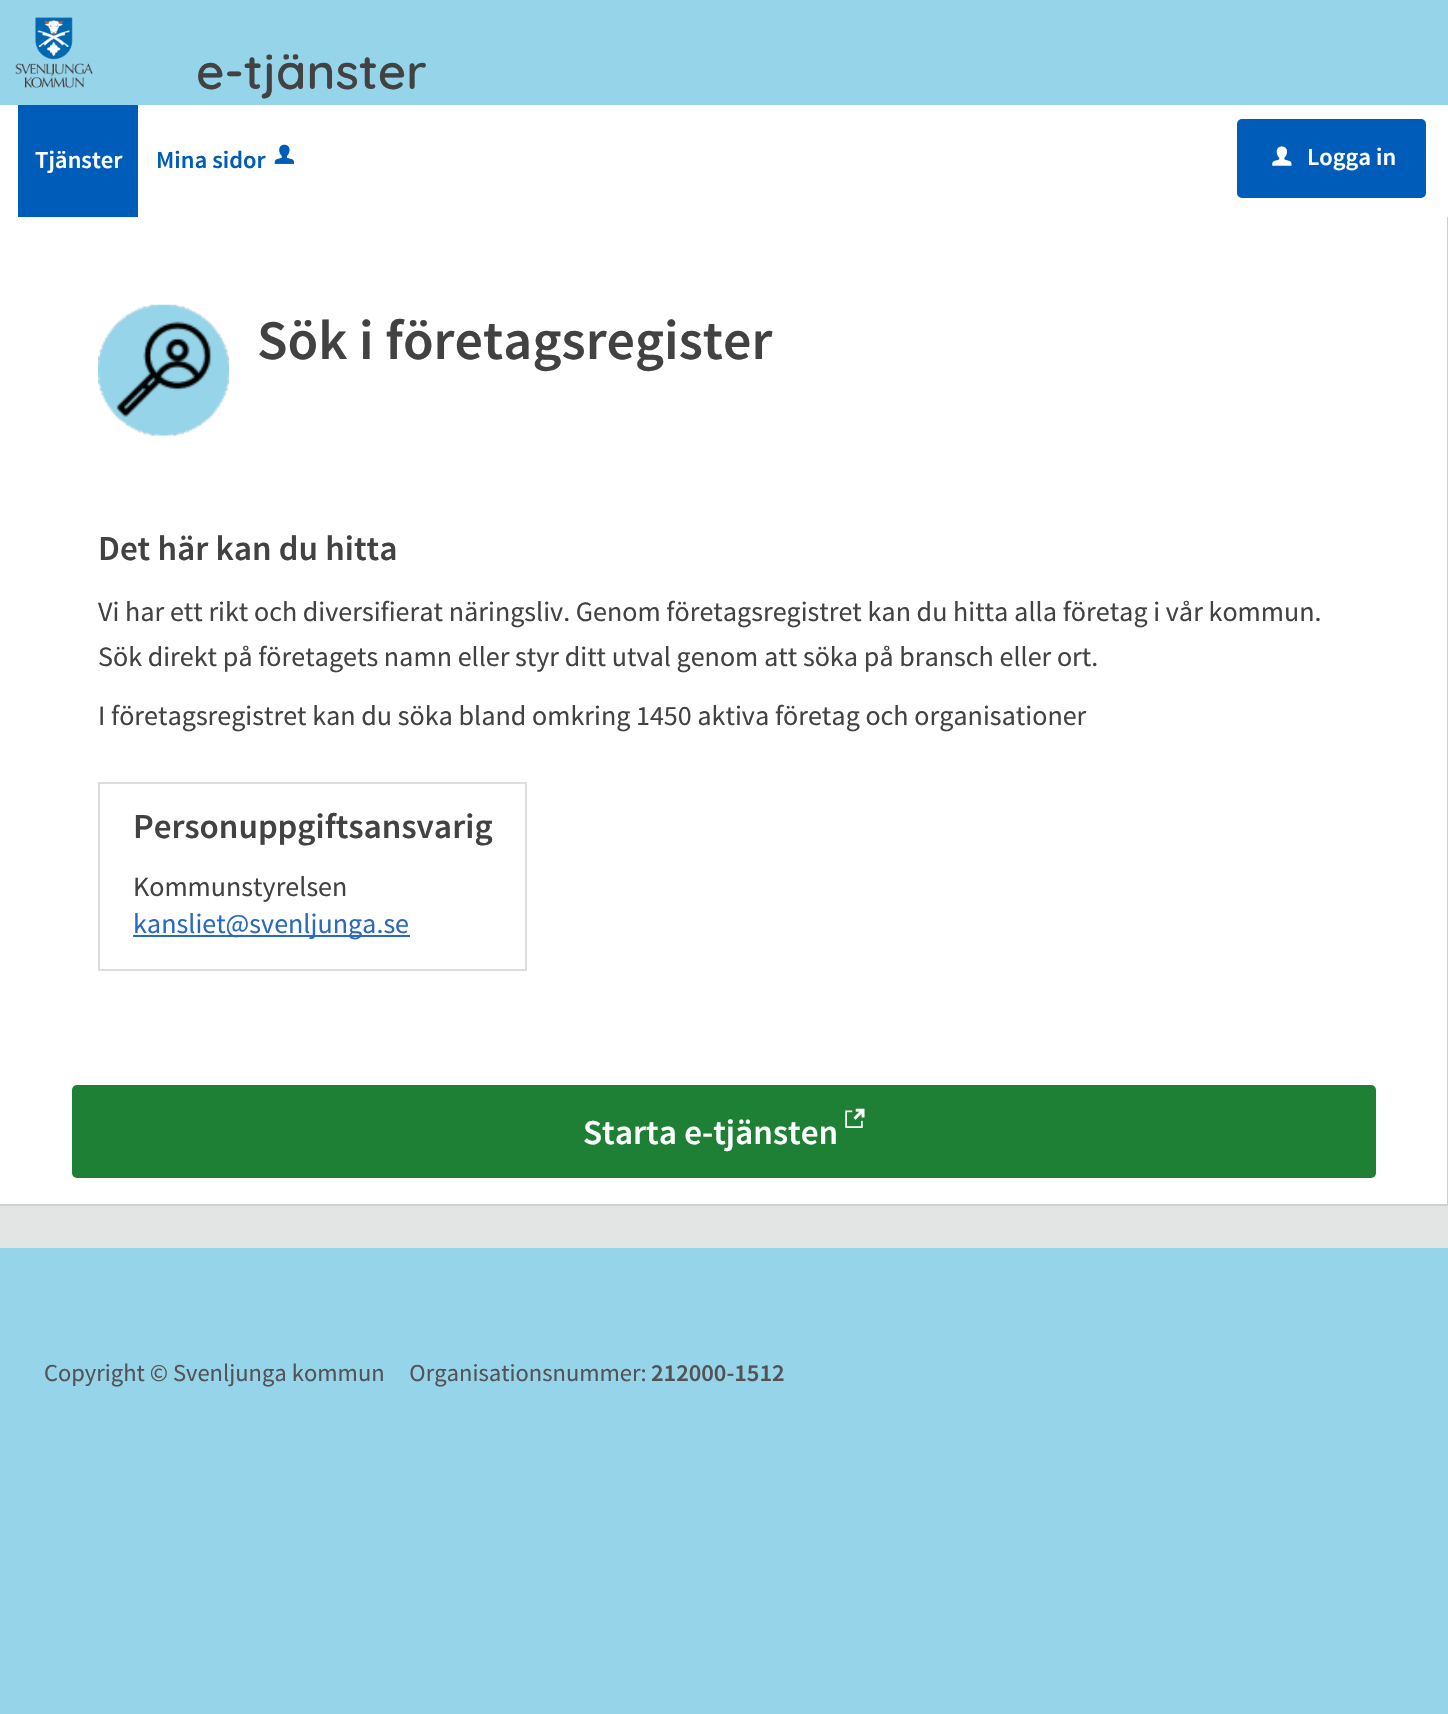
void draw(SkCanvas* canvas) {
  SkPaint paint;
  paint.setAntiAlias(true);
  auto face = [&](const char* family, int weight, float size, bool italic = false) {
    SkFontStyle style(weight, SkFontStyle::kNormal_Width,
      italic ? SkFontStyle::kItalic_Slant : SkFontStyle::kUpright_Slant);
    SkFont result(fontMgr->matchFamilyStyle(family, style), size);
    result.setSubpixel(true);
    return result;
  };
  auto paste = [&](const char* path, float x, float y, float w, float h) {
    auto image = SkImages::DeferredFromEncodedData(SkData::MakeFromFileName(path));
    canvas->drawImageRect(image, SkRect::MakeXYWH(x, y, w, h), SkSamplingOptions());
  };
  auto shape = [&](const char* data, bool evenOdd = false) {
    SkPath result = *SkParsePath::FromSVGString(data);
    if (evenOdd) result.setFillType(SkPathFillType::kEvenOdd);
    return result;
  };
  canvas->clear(0xffe3e4e4);
  paint.setColor(0xff95d4e9);
  canvas->drawRect(SkRect::MakeXYWH(0, 0, 1448, 105), paint);
  paste("img/1.png", 15, 17, 78, 71);
  paint.setColor(0xffffffff);
  canvas->drawRect(SkRect::MakeXYWH(0, 105, 1448, 112), paint);
  paint.setColor(0xff005cb9);
  canvas->drawRect(SkRect::MakeXYWH(18, 105, 120, 112), paint);
  paste("img/2.png", 274, 144, 20, 20);
  canvas->drawRoundRect(SkRect::MakeXYWH(1237, 119, 189, 79), 5, 5, paint);
  paste("img/3.png", 1272, 146, 20, 20);
  {
    const struct { float x, y, w, h; SkColor color; } items[] = {
      {0, 217, 1447, 987, 0xffffffff},
      {1447, 217, 1, 989, 0xffcfcfcf},
      {0, 1204, 1448, 2, 0xffcfcfcf},
    };
    for (auto [x, y, w, h, color] : items) {
      paint.setColor(color);
      canvas->drawRect(SkRect::MakeXYWH(x, y, w, h), paint);
    }
  }
  paste("img/4.png", 98, 304, 132, 132);
  paint.setStroke(true);
  paint.setStrokeWidth(2);
  paint.setColor(0xffdddddd);
  canvas->drawRect(SkRect::MakeXYWH(99, 783, 427, 187), paint);
  paint.setStroke(false);
  paint.setColor(0xff2969bf);
  canvas->drawRect(SkRect::MakeXYWH(133, 935, 277, 2), paint);
  paint.setColor(0xff1d8034);
  canvas->drawRoundRect(SkRect::MakeXYWH(72, 1085, 1304, 93), 5, 5, paint);
  paste("img/5.png", 845, 1108, 20, 20);
  paint.setColor(0xff95d4e9);
  canvas->drawPath(shape("M-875 1248V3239H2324V1248H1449V1489H0V1248Z"), paint);
  canvas->drawRect(SkRect::MakeXYWH(0, 1248, 1448, 241), paint);
  auto f0 = face("Quicksand", 600, 49);
  paint.setColor(0xff424242);
  canvas->drawString("e-tjänster", 196, 89, f0, paint);
  auto f1 = face("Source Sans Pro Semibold", 600, 24.5f);
  paint.setColor(0xffffffff);
  canvas->drawString("Tjänster", 35, 168, f1, paint);
  paint.setColor(0xff005cb9);
  canvas->drawString("Mina sidor", 156, 168, f1, paint);
  paint.setColor(0xffffffff);
  canvas->drawString("Logga in", 1307, 165, f1, paint);
  auto f2 = face("Source Sans Pro Semibold", 600, 56);
  paint.setColor(0xff424242);
  canvas->drawString("Sök i företagsregister", 257, 359, f2, paint);
  auto f3 = face("Source Sans Pro Semibold", 600, 35);
  canvas->drawString("Det här kan du hitta", 98, 560, f3, paint);
  auto f4 = face("Source Sans Pro", 400, 28);
  {
    const struct { const char* s; float x, y; } items[] = {
      {"Vi har ett rikt och diversifierat näringsliv. Genom företagsregistret kan du hitta alla företag i vår kommun.", 98, 621},
      {"Sök direkt på företagets namn eller styr ditt utval genom att söka på bransch eller ort.", 98, 666},
      {"I företagsregistret kan du söka bland omkring 1450 aktiva företag och organisationer", 98, 725},
    };
    for (auto [s, x, y] : items) {
      canvas->drawString(s, x, y, f4, paint);
    }
  }
  canvas->drawString("Personuppgiftsansvarig", 133, 838, f3, paint);
  canvas->drawString("Kommunstyrelsen", 133, 896, f4, paint);
  paint.setColor(0xff2969bf);
  canvas->drawString("kansliet@svenljunga.se", 133, 933, f4, paint);
  paint.setColor(0xffffffff);
  canvas->drawString("Starta e-tjänsten", 583, 1144, f3, paint);
  auto f5 = face("Source Sans Pro", 400, 24.5f);
  paint.setColor(0xff535355);
  canvas->drawString("Copyright © Svenljunga kommun     Organisationsnummer:", 44, 1381, f5, paint);
  canvas->drawString("212000-1512", 651, 1381, f1, paint);
}
